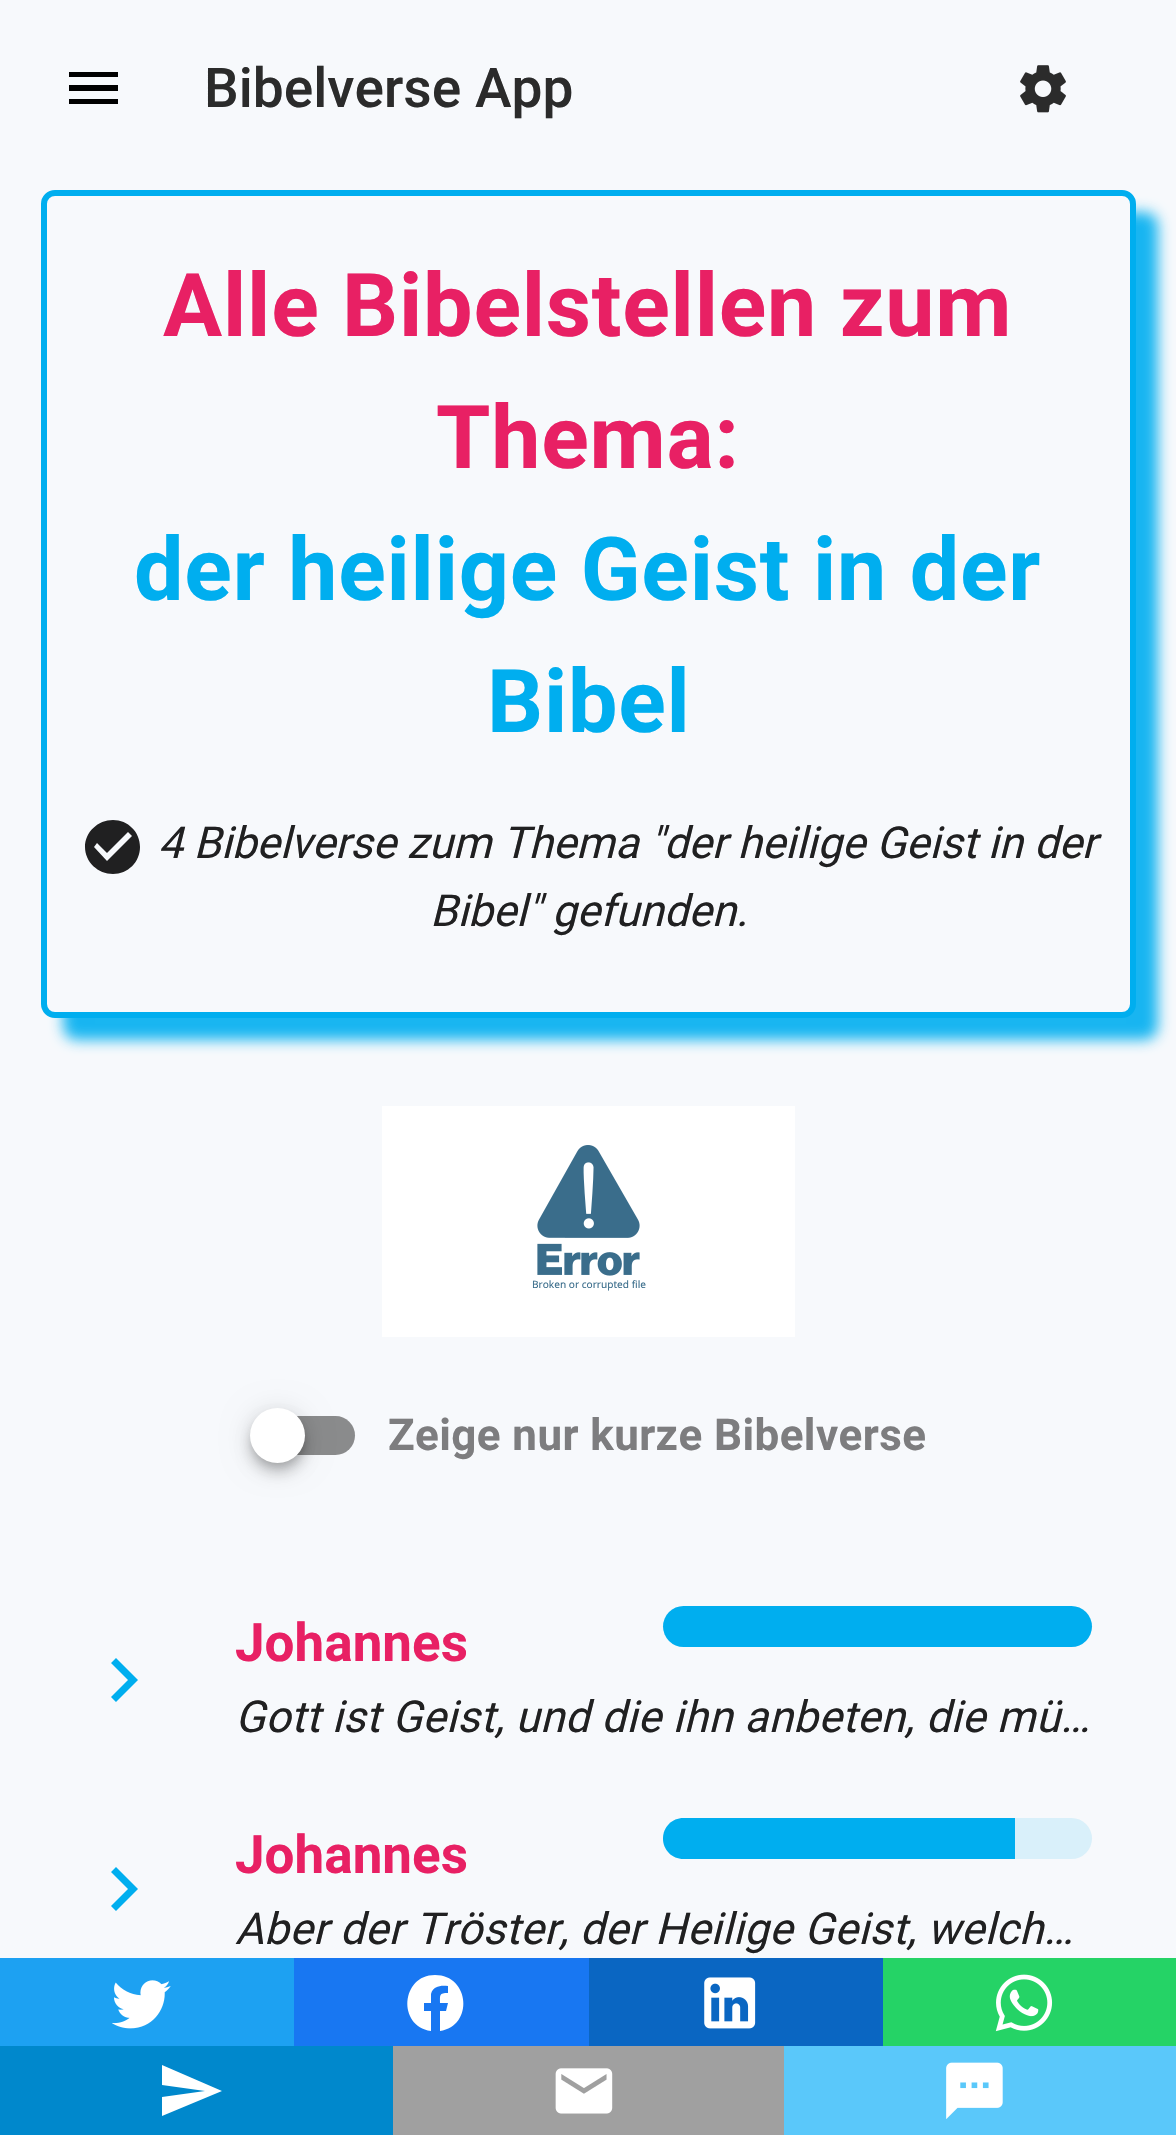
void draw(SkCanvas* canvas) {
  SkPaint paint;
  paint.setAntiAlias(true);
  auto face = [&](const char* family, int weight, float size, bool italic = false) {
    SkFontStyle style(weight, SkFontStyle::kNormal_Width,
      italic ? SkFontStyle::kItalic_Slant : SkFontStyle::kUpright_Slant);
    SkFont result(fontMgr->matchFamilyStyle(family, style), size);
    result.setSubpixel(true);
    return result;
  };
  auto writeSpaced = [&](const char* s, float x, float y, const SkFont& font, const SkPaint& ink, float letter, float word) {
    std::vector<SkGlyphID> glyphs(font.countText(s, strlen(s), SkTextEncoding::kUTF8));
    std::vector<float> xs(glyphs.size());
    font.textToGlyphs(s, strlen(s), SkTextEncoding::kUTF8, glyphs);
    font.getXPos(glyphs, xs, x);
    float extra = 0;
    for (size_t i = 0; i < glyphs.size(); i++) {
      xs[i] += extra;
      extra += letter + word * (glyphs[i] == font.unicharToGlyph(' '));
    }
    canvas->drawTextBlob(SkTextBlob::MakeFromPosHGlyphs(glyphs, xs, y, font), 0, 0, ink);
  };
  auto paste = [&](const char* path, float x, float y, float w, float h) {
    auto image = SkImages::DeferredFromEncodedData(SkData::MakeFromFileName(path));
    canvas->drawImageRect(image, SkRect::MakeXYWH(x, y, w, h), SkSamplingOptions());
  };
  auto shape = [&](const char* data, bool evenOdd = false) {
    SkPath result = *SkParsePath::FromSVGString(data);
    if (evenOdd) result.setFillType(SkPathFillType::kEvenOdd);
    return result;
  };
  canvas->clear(0xfff7f9fc);
  paint.setColor(0xff000000);
  canvas->drawPath(shape("M69 72H118V77H69V72M69 85H118V91H69V85M69 99H118V104H69Z"), paint);
  paste("img/1.png", 1020, 65, 46, 48);
  paint.setColor(0xe600aeef);
  paint.setMaskFilter(SkMaskFilter::MakeBlur(kNormal_SkBlurStyle, 7));
  canvas->drawRoundRect(SkRect::MakeXYWH(63, 212, 1095, 828), 14, 14, paint);
  paint.setMaskFilter(nullptr);
  paint.setColor(0xfff7f9fc);
  canvas->drawRoundRect(SkRect::MakeXYWH(44, 193, 1089, 822), 11, 11, paint);
  paint.setStroke(true);
  paint.setStrokeWidth(6);
  paint.setColor(0xff00aeef);
  canvas->drawRoundRect(SkRect::MakeXYWH(44, 193, 1089, 822), 11, 11, paint);
  paint.setStroke(false);
  paint.setColor(0xff202021);
  canvas->drawPath(shape("M107 861L94 847L97 843L107 853L128 832L132 836M113 820C98 820 85 832 85 847C85 862 98 874 113 874C128 874 140 862 140 847C140 832 128 820 113 820Z"), paint);
  paste("img/2.png", 382, 1106, 413, 231);
  paint.setColor(0xff8a8b8c);
  canvas->drawRoundRect(SkRect::MakeXYWH(256, 1416, 99, 39), 19.5f, 19.5f, paint);
  paint.setColor(0x1f000000);
  paint.setMaskFilter(SkMaskFilter::MakeBlur(kNormal_SkBlurStyle, 14));
  canvas->drawRoundRect(SkRect::MakeXYWH(250, 1411, 55, 55), 27.5f, 27.5f, paint);
  paint.setMaskFilter(nullptr);
  paint.setColor(0x24000000);
  paint.setMaskFilter(SkMaskFilter::MakeBlur(kNormal_SkBlurStyle, 7));
  canvas->drawRoundRect(SkRect::MakeXYWH(250, 1419, 55, 55), 27.5f, 27.5f, paint);
  paint.setMaskFilter(nullptr);
  paint.setColor(0x33000000);
  paint.setMaskFilter(SkMaskFilter::MakeBlur(kNormal_SkBlurStyle, 5.5f));
  canvas->drawRoundRect(SkRect::MakeXYWH(253, 1416, 50, 50), 25, 25, paint);
  paint.setMaskFilter(nullptr);
  paint.setColor(0xffffffff);
  canvas->drawCircle(277.5f, 1435.5f, 27.5f, paint);
  paint.setColor(0xff00aeef);
  canvas->drawPath(shape("M111 1697L128 1680L111 1663L116 1658L138 1680L116 1702Z"), paint);
  canvas->drawRoundRect(SkRect::MakeXYWH(663, 1606, 429, 41), 20.5f, 20.5f, paint);
  canvas->drawPath(shape("M111 1906L128 1889L111 1872L116 1867L138 1889L116 1911Z"), paint);
  paint.setColor(0xffd9f0fa);
  canvas->drawRoundRect(SkRect::MakeXYWH(663, 1818, 429, 41), 20.5f, 20.5f, paint);
  paint.setColor(0xff00aeef);
  canvas->drawPath(shape("M683.5 1818H1015V1859H683.5C672 1859 663 1850 663 1838.5C663 1827 672 1818 683.5 1818Z"), paint);
  paint.setColor(0xff1da1f2);
  canvas->drawRect(SkRect::MakeXYWH(0, 1958, 294, 88), paint);
  paste("img/3.png", 112, 1980, 59, 49);
  paint.setColor(0xff1877f2);
  canvas->drawRect(SkRect::MakeXYWH(294, 1958, 295, 88), paint);
  paint.setColor(0xffffffff);
  canvas->drawPath(shape("M435 1975C401 1975 397 2026 431 2031V2011H424V2003H431V1994C433 1986 441 1985 448 1986V1993C439 1993 440 1995 440 2003H448L446 2011H440V2031C474 2026 470 1975 435 1975Z"), paint);
  paint.setColor(0xff0a66c2);
  canvas->drawRect(SkRect::MakeXYWH(589, 1958, 294, 88), paint);
  paste("img/4.png", 704, 1977, 52, 52);
  paint.setColor(0xff25d366);
  canvas->drawRect(SkRect::MakeXYWH(883, 1958, 293, 88), paint);
  paste("img/5.png", 995, 1974, 58, 58);
  paint.setColor(0xff0088cc);
  canvas->drawRect(SkRect::MakeXYWH(0, 2046, 393, 89), paint);
  paint.setColor(0xffffffff);
  canvas->drawPath(shape("M162 2116L222 2091L162 2065V2085L205 2091L162 2097Z"), paint);
  paint.setColor(0xffa0a0a0);
  canvas->drawRect(SkRect::MakeXYWH(393, 2046, 391, 89), paint);
  paste("img/6.png", 555, 2068, 58, 46);
  paint.setColor(0xff5ac8fa);
  canvas->drawRect(SkRect::MakeXYWH(784, 2046, 392, 89), paint);
  paste("img/7.png", 946, 2062, 57, 57);
  auto f0 = face("Roboto", 500, 55);
  paint.setColor(0xff2b2b2b);
  canvas->drawString("Bibelverse App", 204, 107, f0, paint);
  auto f1 = face("Roboto", 700, 88);
  paint.setColor(0xffe82064);
  writeSpaced("Alle Bibelstellen zum", 163, 336, f1, paint, 0.75f, 0);
  writeSpaced("Thema:", 436, 468, f1, paint, 0.75f, 0);
  paint.setColor(0xff00aeef);
  writeSpaced("der heilige Geist in der", 134, 600, f1, paint, 0.75f, 0);
  writeSpaced("Bibel", 487, 732, f1, paint, 0.75f, 0);
  auto f2 = face("Roboto", 400, 44, true);
  paint.setColor(0xff202021);
  canvas->drawString("4 Bibelverse zum Thema \"der heilige Geist in der", 158, 858, f2, paint);
  canvas->drawString("Bibel\" gefunden.", 430, 926, f2, paint);
  auto f3 = face("Noto Sans", 400, 10.1f);
  paint.setColor(0xff3a6d8b);
  canvas->drawString("Broken or corrupted file", 532, 1288, f3, paint);
  auto f4 = face("Roboto", 700, 44);
  paint.setColor(0xff7d7d7f);
  writeSpaced("Zeige nur kurze Bibelverse", 388, 1450, f4, paint, 0.4f, 0);
  auto f5 = face("Roboto", 700, 53);
  paint.setColor(0xffe82064);
  canvas->drawString("Johannes", 235, 1661, f5, paint);
  paint.setColor(0xff202021);
  writeSpaced("Gott ist Geist, und die ihn anbeten, die mü…", 235, 1732, f2, paint, 0.4f, 0);
  paint.setColor(0xffe82064);
  canvas->drawString("Johannes", 235, 1873, f5, paint);
  paint.setColor(0xff202021);
  writeSpaced("Aber der Tröster, der Heilige Geist, welch…", 235, 1944, f2, paint, 0.4f, 0);
}
